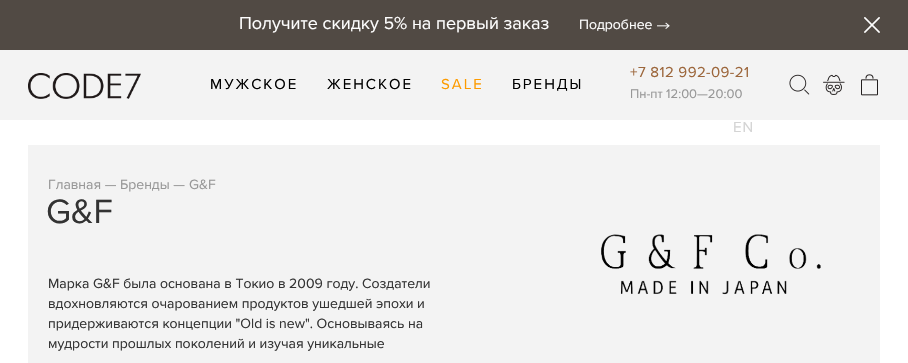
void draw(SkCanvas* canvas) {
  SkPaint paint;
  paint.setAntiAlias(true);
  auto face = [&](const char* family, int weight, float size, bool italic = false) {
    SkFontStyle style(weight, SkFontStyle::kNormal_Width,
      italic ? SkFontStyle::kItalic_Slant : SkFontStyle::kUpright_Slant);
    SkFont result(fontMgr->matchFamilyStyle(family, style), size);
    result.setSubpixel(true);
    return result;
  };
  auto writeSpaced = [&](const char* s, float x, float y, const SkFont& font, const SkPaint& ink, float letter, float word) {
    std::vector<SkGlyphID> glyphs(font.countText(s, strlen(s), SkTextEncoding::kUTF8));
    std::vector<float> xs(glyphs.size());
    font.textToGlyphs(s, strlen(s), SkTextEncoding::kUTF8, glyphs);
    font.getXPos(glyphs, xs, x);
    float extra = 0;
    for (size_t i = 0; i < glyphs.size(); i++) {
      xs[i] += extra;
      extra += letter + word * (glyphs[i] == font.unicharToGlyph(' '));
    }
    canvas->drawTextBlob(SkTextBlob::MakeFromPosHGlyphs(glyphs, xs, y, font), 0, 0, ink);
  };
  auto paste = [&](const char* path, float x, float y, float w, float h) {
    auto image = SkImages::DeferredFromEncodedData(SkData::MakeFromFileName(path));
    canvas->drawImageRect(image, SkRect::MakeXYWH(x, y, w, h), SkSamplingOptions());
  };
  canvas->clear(0xffffffff);
  paint.setColor(0xff514a44);
  canvas->drawRect(SkRect::MakeXYWH(0, 0, 908, 50), paint);
  paste("img/1.png", 657, 22, 13, 7);
  paste("img/2.png", 864, 17, 16, 16);
  paint.setColor(0xfff3f3f3);
  canvas->drawRect(SkRect::MakeXYWH(0, 50, 908, 70), paint);
  paste("img/3.png", 28, 73, 113, 26);
  paste("img/4.png", 789, 74, 21, 21);
  paste("img/5.png", 823, 74, 22, 21);
  paste("img/6.png", 861, 74, 17, 22);
  canvas->drawRect(SkRect::MakeXYWH(28, 145, 852, 218), paint);
  paste("img/7.png", 601, 234, 220, 61);
  auto f0 = face("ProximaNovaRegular", 400, 18);
  paint.setColor(0xfffefefe);
  canvas->drawString("Получите скидку 5% на первый заказ", 239, 29, f0, paint);
  auto f1 = face("ProximaNovaRegular", 400, 14);
  canvas->drawString("Подробнее", 579, 29, f1, paint);
  auto f2 = face("ProximaNovaRegular", 400, 15);
  paint.setColor(0xff000000);
  writeSpaced("МУЖСКОЕ", 210, 89, f2, paint, 2, 0);
  writeSpaced("ЖЕНСКОЕ", 327, 89, f2, paint, 2, 0);
  paint.setColor(0xfffd9b00);
  writeSpaced("SALE", 441, 89, f2, paint, 2, 0);
  paint.setColor(0xff000000);
  writeSpaced("БРЕНДЫ", 512, 89, f2, paint, 2, 0);
  paint.setColor(0xff9c663b);
  writeSpaced("+7 812 992-09-21", 630, 77, f2, paint, 0.4f, 0);
  auto f3 = face("ProximaNovaRegular", 400, 13);
  paint.setColor(0xff979797);
  canvas->drawString("Пн-пт 12:00—20:00", 630, 98, f3, paint);
  paint.setColor(0xffd4d4d4);
  writeSpaced("EN", 733, 132, f2, paint, 1, 0);
  paint.setColor(0xff979797);
  {
    const struct { const char* s; float x, y; } items[] = {
      {"Главная —", 48, 189},
      {"Бренды —", 120, 189},
      {"G&F", 189, 189},
    };
    for (auto [s, x, y] : items) {
      canvas->drawString(s, x, y, f1, paint);
    }
  }
  auto f4 = face("ProximaNovaRegular", 400, 35);
  paint.setColor(0xff333333);
  canvas->drawString("G&F", 46, 223, f4, paint);
  {
    const struct { const char* s; float x, y; } items[] = {
      {"Марка G&F была основана в Токио в 2009 году. Cоздатели", 48, 288},
      {"вдохновляются очарованием продуктов ушедшей эпохи и", 48, 308},
      {"придерживаются концепции \"Old is new\". Основываясь на", 48, 328},
      {"мудрости прошлых поколений и изучая уникальные", 48, 348},
    };
    for (auto [s, x, y] : items) {
      canvas->drawString(s, x, y, f1, paint);
    }
  }
}
